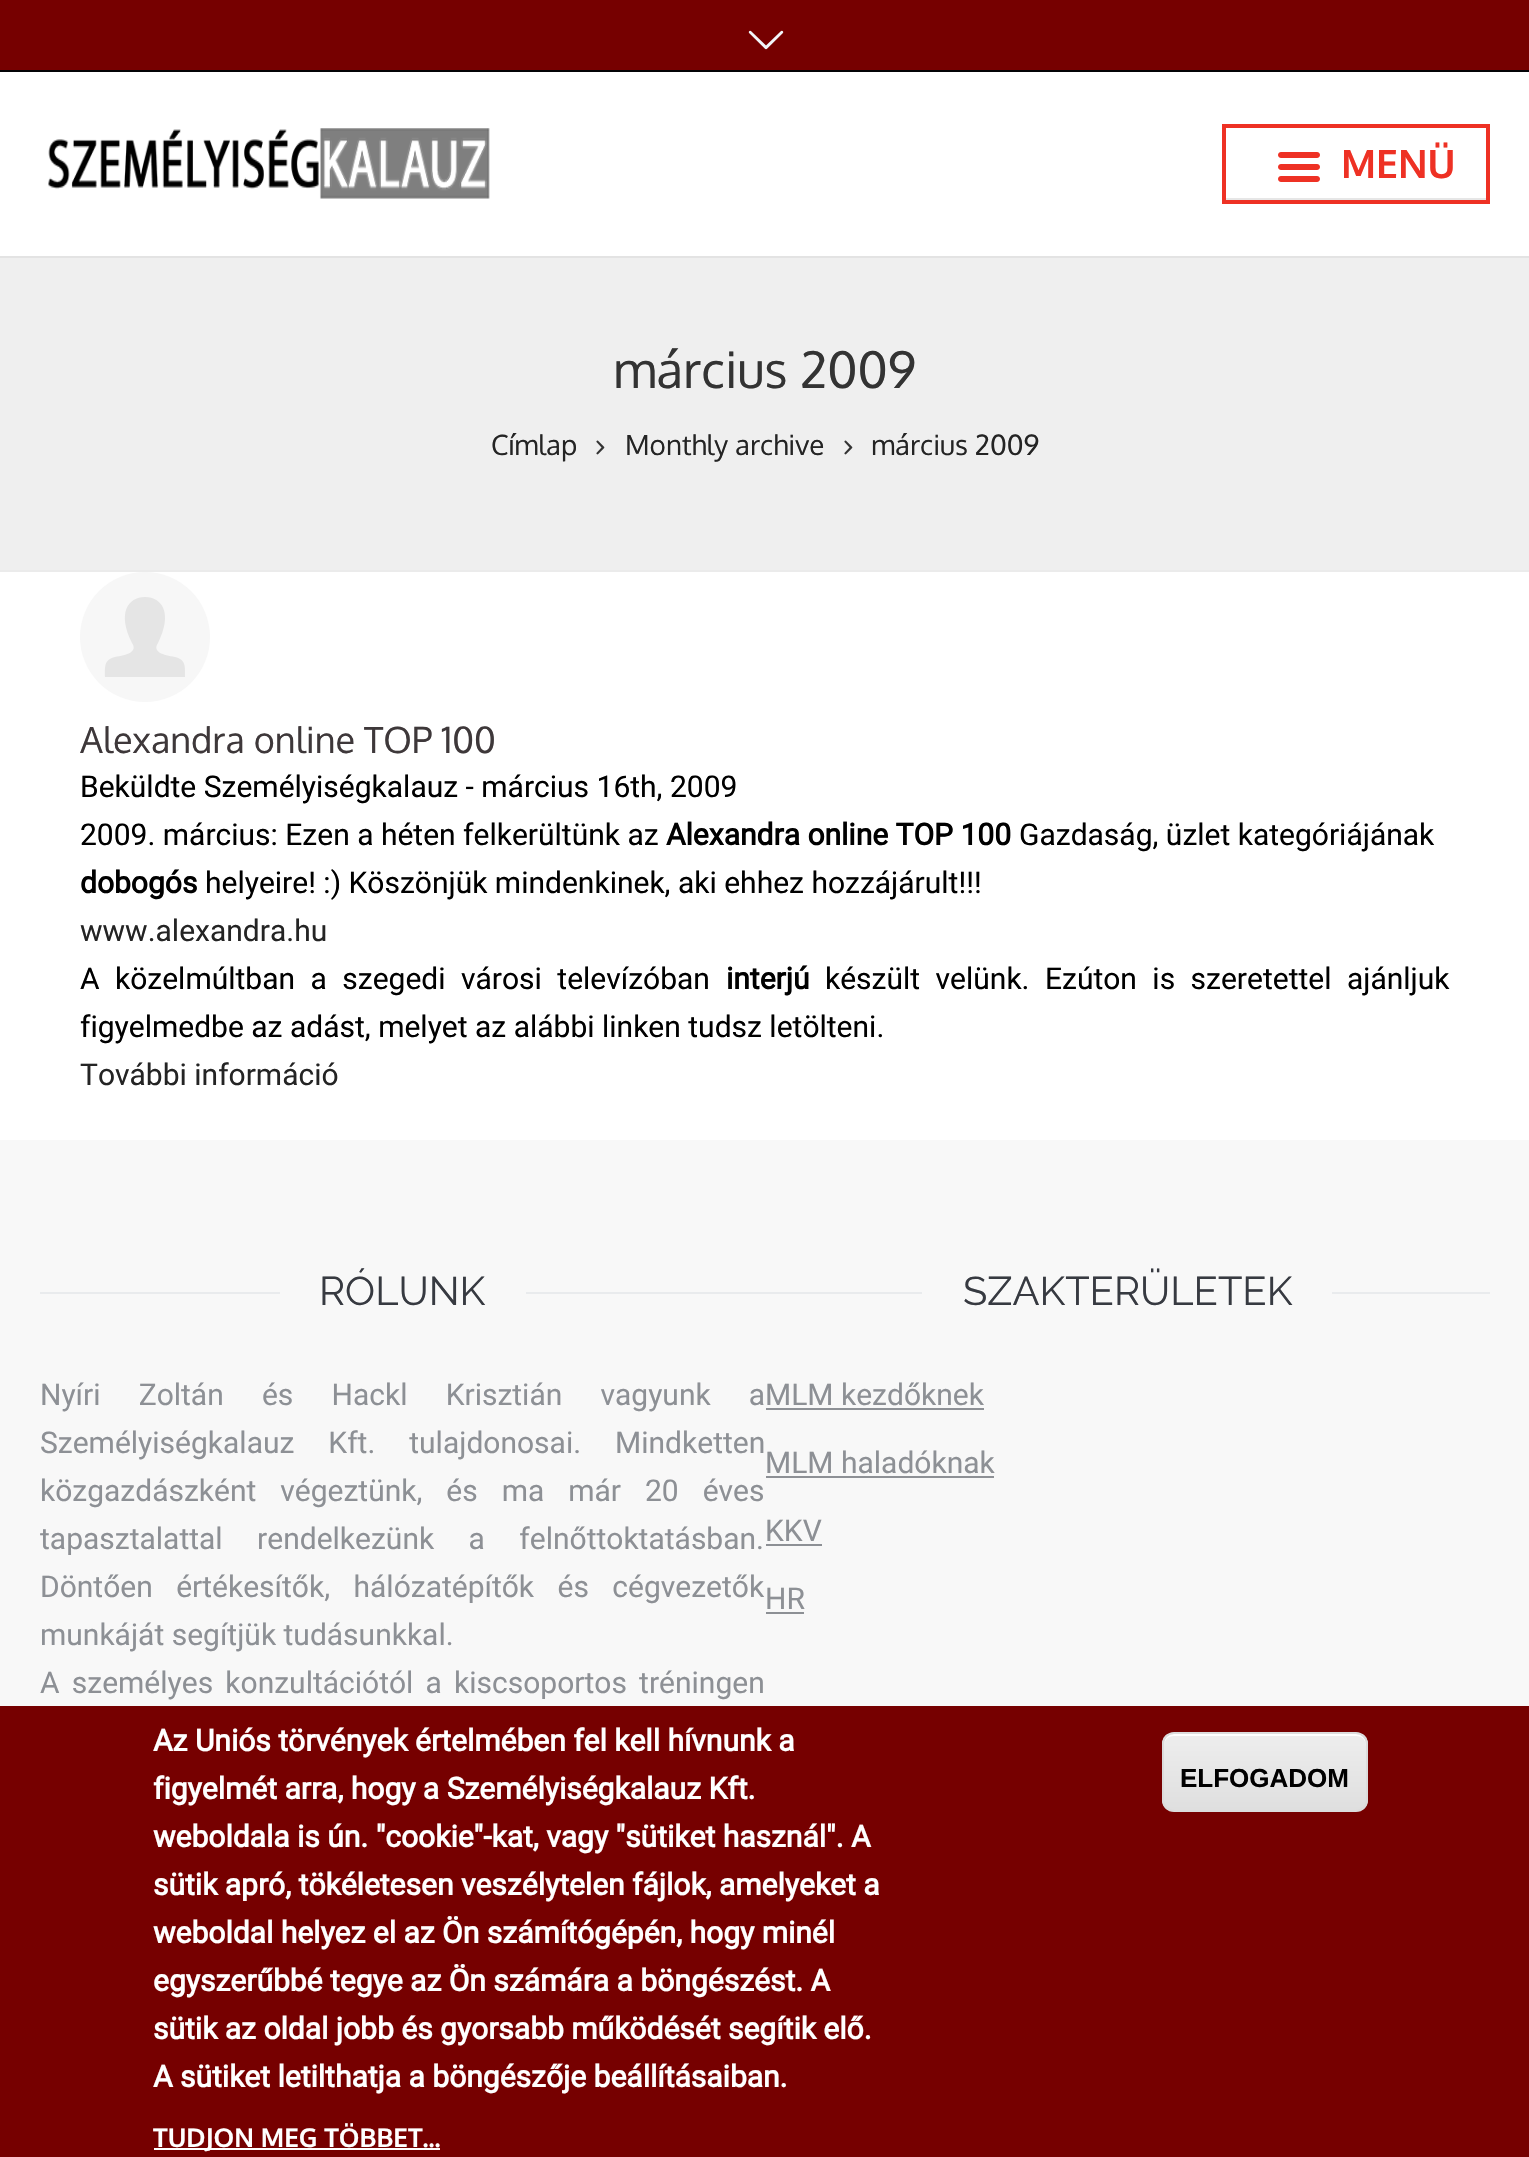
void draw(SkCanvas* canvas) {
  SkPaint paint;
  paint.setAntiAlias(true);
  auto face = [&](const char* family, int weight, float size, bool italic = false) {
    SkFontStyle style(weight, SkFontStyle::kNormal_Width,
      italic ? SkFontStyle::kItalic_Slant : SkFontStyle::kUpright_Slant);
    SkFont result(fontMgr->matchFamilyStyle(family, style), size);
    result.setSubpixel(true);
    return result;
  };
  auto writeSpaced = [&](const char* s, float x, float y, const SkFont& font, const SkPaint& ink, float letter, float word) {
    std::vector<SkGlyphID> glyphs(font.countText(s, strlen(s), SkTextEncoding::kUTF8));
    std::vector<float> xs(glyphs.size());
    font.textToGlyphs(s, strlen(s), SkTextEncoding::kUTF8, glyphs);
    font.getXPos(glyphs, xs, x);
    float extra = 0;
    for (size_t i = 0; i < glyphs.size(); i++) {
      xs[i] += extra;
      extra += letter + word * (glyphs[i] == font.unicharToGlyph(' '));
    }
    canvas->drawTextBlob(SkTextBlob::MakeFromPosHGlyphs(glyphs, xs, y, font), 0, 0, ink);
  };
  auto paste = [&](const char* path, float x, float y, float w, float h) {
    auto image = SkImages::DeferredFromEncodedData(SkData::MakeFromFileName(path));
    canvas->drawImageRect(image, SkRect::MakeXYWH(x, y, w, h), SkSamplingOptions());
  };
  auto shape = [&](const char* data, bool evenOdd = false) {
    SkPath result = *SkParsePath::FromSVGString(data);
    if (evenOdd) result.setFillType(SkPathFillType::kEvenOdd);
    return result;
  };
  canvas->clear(0xffffffff);
  paint.setColor(0xff760000);
  canvas->drawRect(SkRect::MakeXYWH(0, 0, 1529, 70), paint);
  paint.setColor(0xff040407);
  canvas->drawRect(SkRect::MakeXYWH(0, 70, 1529, 2), paint);
  paste("img/1.png", 748, 30, 36, 20);
  paint.setColor(0xffe3e3e3);
  canvas->drawRect(SkRect::MakeXYWH(0, 256, 1529, 2), paint);
  paste("img/2.png", 48, 128, 442, 71);
  paint.setColor(0xffe6e6e6);
  canvas->drawRect(SkRect::MakeXYWH(1226, 198, 260, 2), paint);
  paint.setStroke(true);
  paint.setStrokeWidth(4);
  paint.setColor(0xffee3124);
  canvas->drawRect(SkRect::MakeXYWH(1224, 126, 264, 76), paint);
  paste("img/3.png", 1278, 152, 42, 30);
  paint.setStroke(false);
  paint.setColor(0xffefefef);
  canvas->drawRect(SkRect::MakeXYWH(0, 258, 1529, 312), paint);
  paint.setColor(0xffebebeb);
  canvas->drawRect(SkRect::MakeXYWH(0, 570, 1529, 2), paint);
  paste("img/4.png", 596, 440, 9, 15);
  paste("img/4.png", 844, 440, 9, 15);
  paint.setColor(0xfff7f7f7);
  canvas->drawCircle(145, 637, 65, paint);
  paint.setColor(0xffe5e5e5);
  canvas->drawPath(shape("M175 657C163 655 152 652 158 643C173 613 162 597 145 597C128 597 117 613 132 643C138 652 127 655 115 657C104 660 105 666 105 677H185C185 666 186 660 175 657Z"), paint);
  {
    const struct { float x, y, w, h; SkColor color; } items[] = {
      {0, 1140, 1529, 566, 0xfff8f8f8},
      {40, 1292, 240, 2, 0xffe9ebed},
      {526, 1292, 396, 2, 0xffe9ebed},
      {1332, 1292, 158, 2, 0xffe9ebed},
      {766, 1408, 218, 2, 0xff8d9095},
      {766, 1476, 228, 2, 0xff8d9095},
      {766, 1544, 56, 2, 0xff8d9095},
      {766, 1612, 38, 2, 0xff8d9095},
      {0, 1706, 1529, 451, 0xff760000},
      {154, 2148, 286, 2, 0xffffffff},
    };
    for (auto [x, y, w, h, color] : items) {
      paint.setColor(color);
      canvas->drawRect(SkRect::MakeXYWH(x, y, w, h), paint);
    }
  }
  canvas->save();
  canvas->clipPath(shape("M1174 1732H1356C1362.5 1732 1368 1737.5 1368 1744V1800C1368 1806.5 1362.5 1812 1356 1812H1174C1167.5 1812 1162 1806.5 1162 1800V1744C1162 1737.5 1167.5 1732 1174 1732Z"), true);
  {
    const SkColor colors[] = {0xffededed, 0xffdfdfdf};
    const float stops[] = {0.05f, 1};
    const SkPoint ends[] = {{1265, 1734}, {1265, 1810}};
    paint.setShader(SkGradientShader::MakeLinear(ends, colors, stops, 2, SkTileMode::kClamp));
    paint.setAlpha(255);
  }
  canvas->drawRect(SkRect::MakeXYWH(1162, 1734, 206, 76), paint);
  canvas->restore();
  paint.setShader(nullptr);
  paint.setColor(0xffffffff);
  canvas->drawPath(shape("M1174 1736H1356C1362 1736 1366 1740 1366 1746V1744C1366 1738 1362 1734 1356 1734H1174C1168 1734 1164 1738 1164 1744V1746C1164 1740 1168 1736 1174 1736Z"), paint);
  paint.setStroke(true);
  paint.setStrokeWidth(2);
  paint.setColor(0xffdcdcdc);
  canvas->drawRoundRect(SkRect::MakeXYWH(1163, 1733, 204, 78), 11, 11, paint);
  auto f0 = face("Oxygen", 700, 39);
  paint.setStroke(false);
  paint.setColor(0xffee3124);
  canvas->drawString("MENÜ", 1341, 178, f0, paint);
  auto f1 = face("Oxygen", 400, 50);
  paint.setColor(0xff333333);
  canvas->drawString("március 2009", 613, 388, f1, paint);
  auto f2 = face("Oxygen", 400, 27.75f);
  paint.setColor(0xff242424);
  {
    const struct { const char* s; float x, y; } items[] = {
      {"Címlap", 491, 455},
      {"Monthly archive", 625, 455},
      {"március 2009", 871, 455},
    };
    for (auto [s, x, y] : items) {
      canvas->drawString(s, x, y, f2, paint);
    }
  }
  auto f3 = face("Oxygen", 400, 36);
  paint.setColor(0xff3e383a);
  canvas->drawString("Alexandra online TOP 100", 80, 753, f3, paint);
  auto f4 = face("Roboto", 400, 30);
  paint.setColor(0xff000000);
  canvas->drawString("Beküldte Személyiségkalauz - március 16th, 2009", 80, 797, f4, paint);
  canvas->drawString("2009. március: Ezen a héten felkerültünk az", 80, 845, f4, paint);
  auto f5 = face("Roboto", 700, 30);
  canvas->drawString("Alexandra online TOP 100", 666, 845, f5, paint);
  canvas->drawString("Gazdaság, üzlet kategóriájának", 1019, 845, f4, paint);
  canvas->drawString("dobogós", 80, 893, f5, paint);
  canvas->drawString("helyeire! :) Köszönjük mindenkinek, aki ehhez hozzájárult!!!", 205, 893, f4, paint);
  paint.setColor(0xff242424);
  canvas->drawString("www.alexandra.hu", 80, 941, f4, paint);
  paint.setColor(0xff000000);
  writeSpaced("A közelmúltban a szegedi városi televízóban", 80, 989, f4, paint, 0, 8);
  canvas->drawString("interjú", 726, 989, f5, paint);
  writeSpaced("készült velünk. Ezúton is szeretettel ajánljuk", 825, 989, f4, paint, 0, 8);
  canvas->drawString("figyelmedbe az adást, melyet az alábbi linken tudsz letölteni.", 80, 1037, f4, paint);
  paint.setColor(0xff242424);
  canvas->drawString("További információ", 80, 1085, f4, paint);
  auto f6 = face("Raleway", 400, 40);
  paint.setColor(0xff373a41);
  canvas->drawString("RÓLUNK", 319, 1305, f6, paint);
  paint.setColor(0xff8d9095);
  writeSpaced("Nyíri Zoltán és Hackl Krisztián vagyunk a", 40, 1405, f4, paint, 0, 30.75f);
  writeSpaced("Személyiségkalauz Kft. tulajdonosai. Mindketten", 40, 1453, f4, paint, 0, 26.5f);
  writeSpaced("közgazdászként végeztünk, és ma már 20 éves", 40, 1501, f4, paint, 0, 16.5f);
  writeSpaced("tapasztalattal rendelkezünk a felnőttoktatásban.", 40, 1549, f4, paint, 0, 27);
  writeSpaced("Döntően értékesítők, hálózatépítők és cégvezetők", 40, 1597, f4, paint, 0, 16);
  canvas->drawString("munkáját segítjük tudásunkkal.", 40, 1645, f4, paint);
  writeSpaced("A személyes konzultációtól a kiscsoportos tréningen", 40, 1693, f4, paint, 0, 4.75f);
  paint.setColor(0xff373a41);
  canvas->drawString("SZAKTERÜLETEK", 963, 1305, f6, paint);
  paint.setColor(0xff8d9095);
  {
    const struct { const char* s; float x, y; } items[] = {
      {"MLM kezdőknek", 765, 1405},
      {"MLM haladóknak", 765, 1473},
      {"KKV", 765, 1541},
      {"HR", 765, 1609},
    };
    for (auto [s, x, y] : items) {
      canvas->drawString(s, x, y, f4, paint);
    }
  }
  paint.setColor(0xffffffff);
  {
    const struct { const char* s; float x, y; } items[] = {
      {"Az Uniós törvények értelmében fel kell hívnunk a", 153, 1751},
      {"figyelmét arra, hogy a Személyiségkalauz Kft.", 153, 1799},
      {"weboldala is ún. \"cookie\"-kat, vagy \"sütiket használ\". A", 153, 1847},
      {"sütik apró, tökéletesen veszélytelen fájlok, amelyeket a", 153, 1895},
      {"weboldal helyez el az Ön számítógépén, hogy minél", 153, 1943},
      {"egyszerűbbé tegye az Ön számára a böngészést. A", 153, 1991},
      {"sütik az oldal jobb és gyorsabb működését segítik elő.", 153, 2039},
      {"A sütiket letilthatja a böngészője beállításaiban.", 153, 2087},
    };
    for (auto [s, x, y] : items) {
      canvas->drawString(s, x, y, f5, paint);
    }
  }
  auto f7 = face("Oxygen", 700, 26);
  canvas->drawString("TUDJON MEG TÖBBET...", 153, 2147, f7, paint);
  auto f8 = face("Liberation Sans", 700, 26);
  paint.setColor(0xff000000);
  canvas->drawString("ELFOGADOM", 1180, 1787, f8, paint);
}
